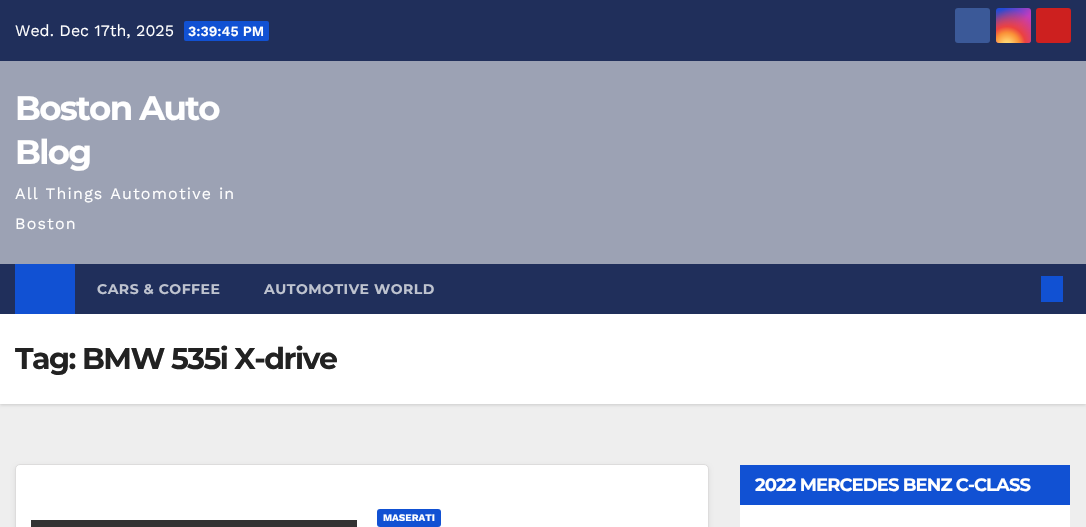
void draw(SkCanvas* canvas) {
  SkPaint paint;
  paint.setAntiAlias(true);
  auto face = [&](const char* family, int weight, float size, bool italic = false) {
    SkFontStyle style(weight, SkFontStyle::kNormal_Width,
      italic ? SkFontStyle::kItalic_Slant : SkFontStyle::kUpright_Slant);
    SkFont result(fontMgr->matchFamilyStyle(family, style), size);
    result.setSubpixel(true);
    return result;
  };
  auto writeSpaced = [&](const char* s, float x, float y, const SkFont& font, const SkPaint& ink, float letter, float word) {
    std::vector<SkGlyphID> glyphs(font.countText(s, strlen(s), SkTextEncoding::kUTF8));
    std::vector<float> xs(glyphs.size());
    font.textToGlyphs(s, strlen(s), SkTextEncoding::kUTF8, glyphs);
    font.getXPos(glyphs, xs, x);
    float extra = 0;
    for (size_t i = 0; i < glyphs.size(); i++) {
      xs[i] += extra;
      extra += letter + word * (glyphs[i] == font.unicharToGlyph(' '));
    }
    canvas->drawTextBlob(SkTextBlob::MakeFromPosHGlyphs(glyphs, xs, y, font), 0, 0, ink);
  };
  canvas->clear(0xffeeeeee);
  paint.setColor(0xff202f5b);
  canvas->drawRect(SkRect::MakeXYWH(0, 0, 1086, 61), paint);
  paint.setColor(0xff1151d3);
  canvas->drawRoundRect(SkRect::MakeXYWH(184, 21, 85, 20), 2, 2, paint);
  paint.setColor(0xff3b5998);
  canvas->drawRoundRect(SkRect::MakeXYWH(955, 8, 35, 35), 3, 3, paint);
  {
    const SkColor colors[] = {0xff234bd7, 0xffc33cbe};
    const float stops[] = {0.12f, 0.58f};
    const SkPoint ends[] = {{996, 8}, {1031, 43}};
    paint.setShader(SkGradientShader::MakeLinear(ends, colors, stops, 2, SkTileMode::kClamp));
    paint.setAlpha(255);
  }
  canvas->drawRoundRect(SkRect::MakeXYWH(996, 8, 35, 35), 3, 3, paint);
  {
    const SkColor colors[] = {0xffffe17d, 0xffffcd69, 0xfffa9137, 0xffeb4141, 0x00eb4141};
    const float stops[] = {0, 0.1f, 0.28f, 0.42f, 0.82f};
    paint.setShader(SkGradientShader::MakeRadial({1007, 45}, 44, colors, stops, 5, SkTileMode::kClamp));
    paint.setAlpha(255);
  }
  canvas->drawRoundRect(SkRect::MakeXYWH(996, 8, 35, 35), 3, 3, paint);
  paint.setShader(nullptr);
  paint.setColor(0xffcd201f);
  canvas->drawRoundRect(SkRect::MakeXYWH(1036, 8, 35, 35), 3, 3, paint);
  paint.setColor(0xff9ca2b4);
  canvas->drawRect(SkRect::MakeXYWH(0, 61, 1086, 203), paint);
  paint.setColor(0x26000000);
  paint.setMaskFilter(SkMaskFilter::MakeBlur(kNormal_SkBlurStyle, 1.5f));
  canvas->drawRect(SkRect::MakeXYWH(0, 315, 1086, 90), paint);
  paint.setMaskFilter(nullptr);
  {
    const struct { float x, y, w, h; SkColor color; } items[] = {
      {0, 264, 1086, 50, 0xff202f5b},
      {15, 264, 60, 50, 0xff1151d3},
      {1041, 276, 22, 26, 0xff1151d3},
      {0, 314, 1086, 90, 0xffffffff},
      {740, 505, 330, 22, 0xffffffff},
      {740, 465, 330, 40, 0xff1151d3},
    };
    for (auto [x, y, w, h, color] : items) {
      paint.setColor(color);
      canvas->drawRect(SkRect::MakeXYWH(x, y, w, h), paint);
    }
  }
  paint.setColor(0x14000000);
  paint.setMaskFilter(SkMaskFilter::MakeBlur(kNormal_SkBlurStyle, 2));
  canvas->drawRoundRect(SkRect::MakeXYWH(15, 466, 694, 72), 5, 5, paint);
  paint.setMaskFilter(nullptr);
  paint.setColor(0xffffffff);
  canvas->drawRoundRect(SkRect::MakeXYWH(15.5f, 464.5f, 693, 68), 4.5f, 4.5f, paint);
  paint.setStroke(true);
  paint.setStrokeWidth(1);
  paint.setColor(0xffdddcdc);
  canvas->drawRoundRect(SkRect::MakeXYWH(15.5f, 464.5f, 693, 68), 4.5f, 4.5f, paint);
  paint.setStroke(false);
  paint.setColor(0xff1151d3);
  canvas->drawRoundRect(SkRect::MakeXYWH(377, 509, 64, 18), 3, 3, paint);
  paint.setColor(0xff333333);
  canvas->drawRect(SkRect::MakeXYWH(31, 520, 326, 7), paint);
  auto f0 = face("Work Sans", 400, 16);
  paint.setColor(0xffffffff);
  canvas->drawString("Wed. Dec 17th, 2025", 15, 36, f0, paint);
  auto f1 = face("Work Sans", 600, 14);
  canvas->drawString("3:39:45 PM", 188, 36, f1, paint);
  auto f2 = face("Montserrat", 700, 34);
  writeSpaced("Boston Auto", 15, 120, f2, paint, -1.75f, 0);
  writeSpaced("Blog", 15, 164, f2, paint, -1.75f, 0);
  writeSpaced("All Things Automotive in", 15, 199, f0, paint, 1.2f, 0);
  writeSpaced("Boston", 15, 229, f0, paint, 1.2f, 0);
  auto f3 = face("Montserrat", 700, 14);
  paint.setColor(0xffbec3cf);
  writeSpaced("CARS & COFFEE", 97, 294, f3, paint, 0.5f, 0);
  writeSpaced("AUTOMOTIVE WORLD", 264, 294, f3, paint, 0.5f, 0);
  auto f4 = face("Montserrat", 700, 30);
  paint.setColor(0xff222222);
  writeSpaced("Tag: BMW 535i X-drive", 15, 369, f4, paint, -1.5f, 0);
  auto f5 = face("Montserrat", 700, 18);
  paint.setColor(0xffffffff);
  writeSpaced("2022 MERCEDES BENZ C-CLASS", 755, 491, f5, paint, -0.9f, 0);
  auto f6 = face("Work Sans", 700, 10);
  canvas->drawString("MASERATI", 383, 521, f6, paint);
}
